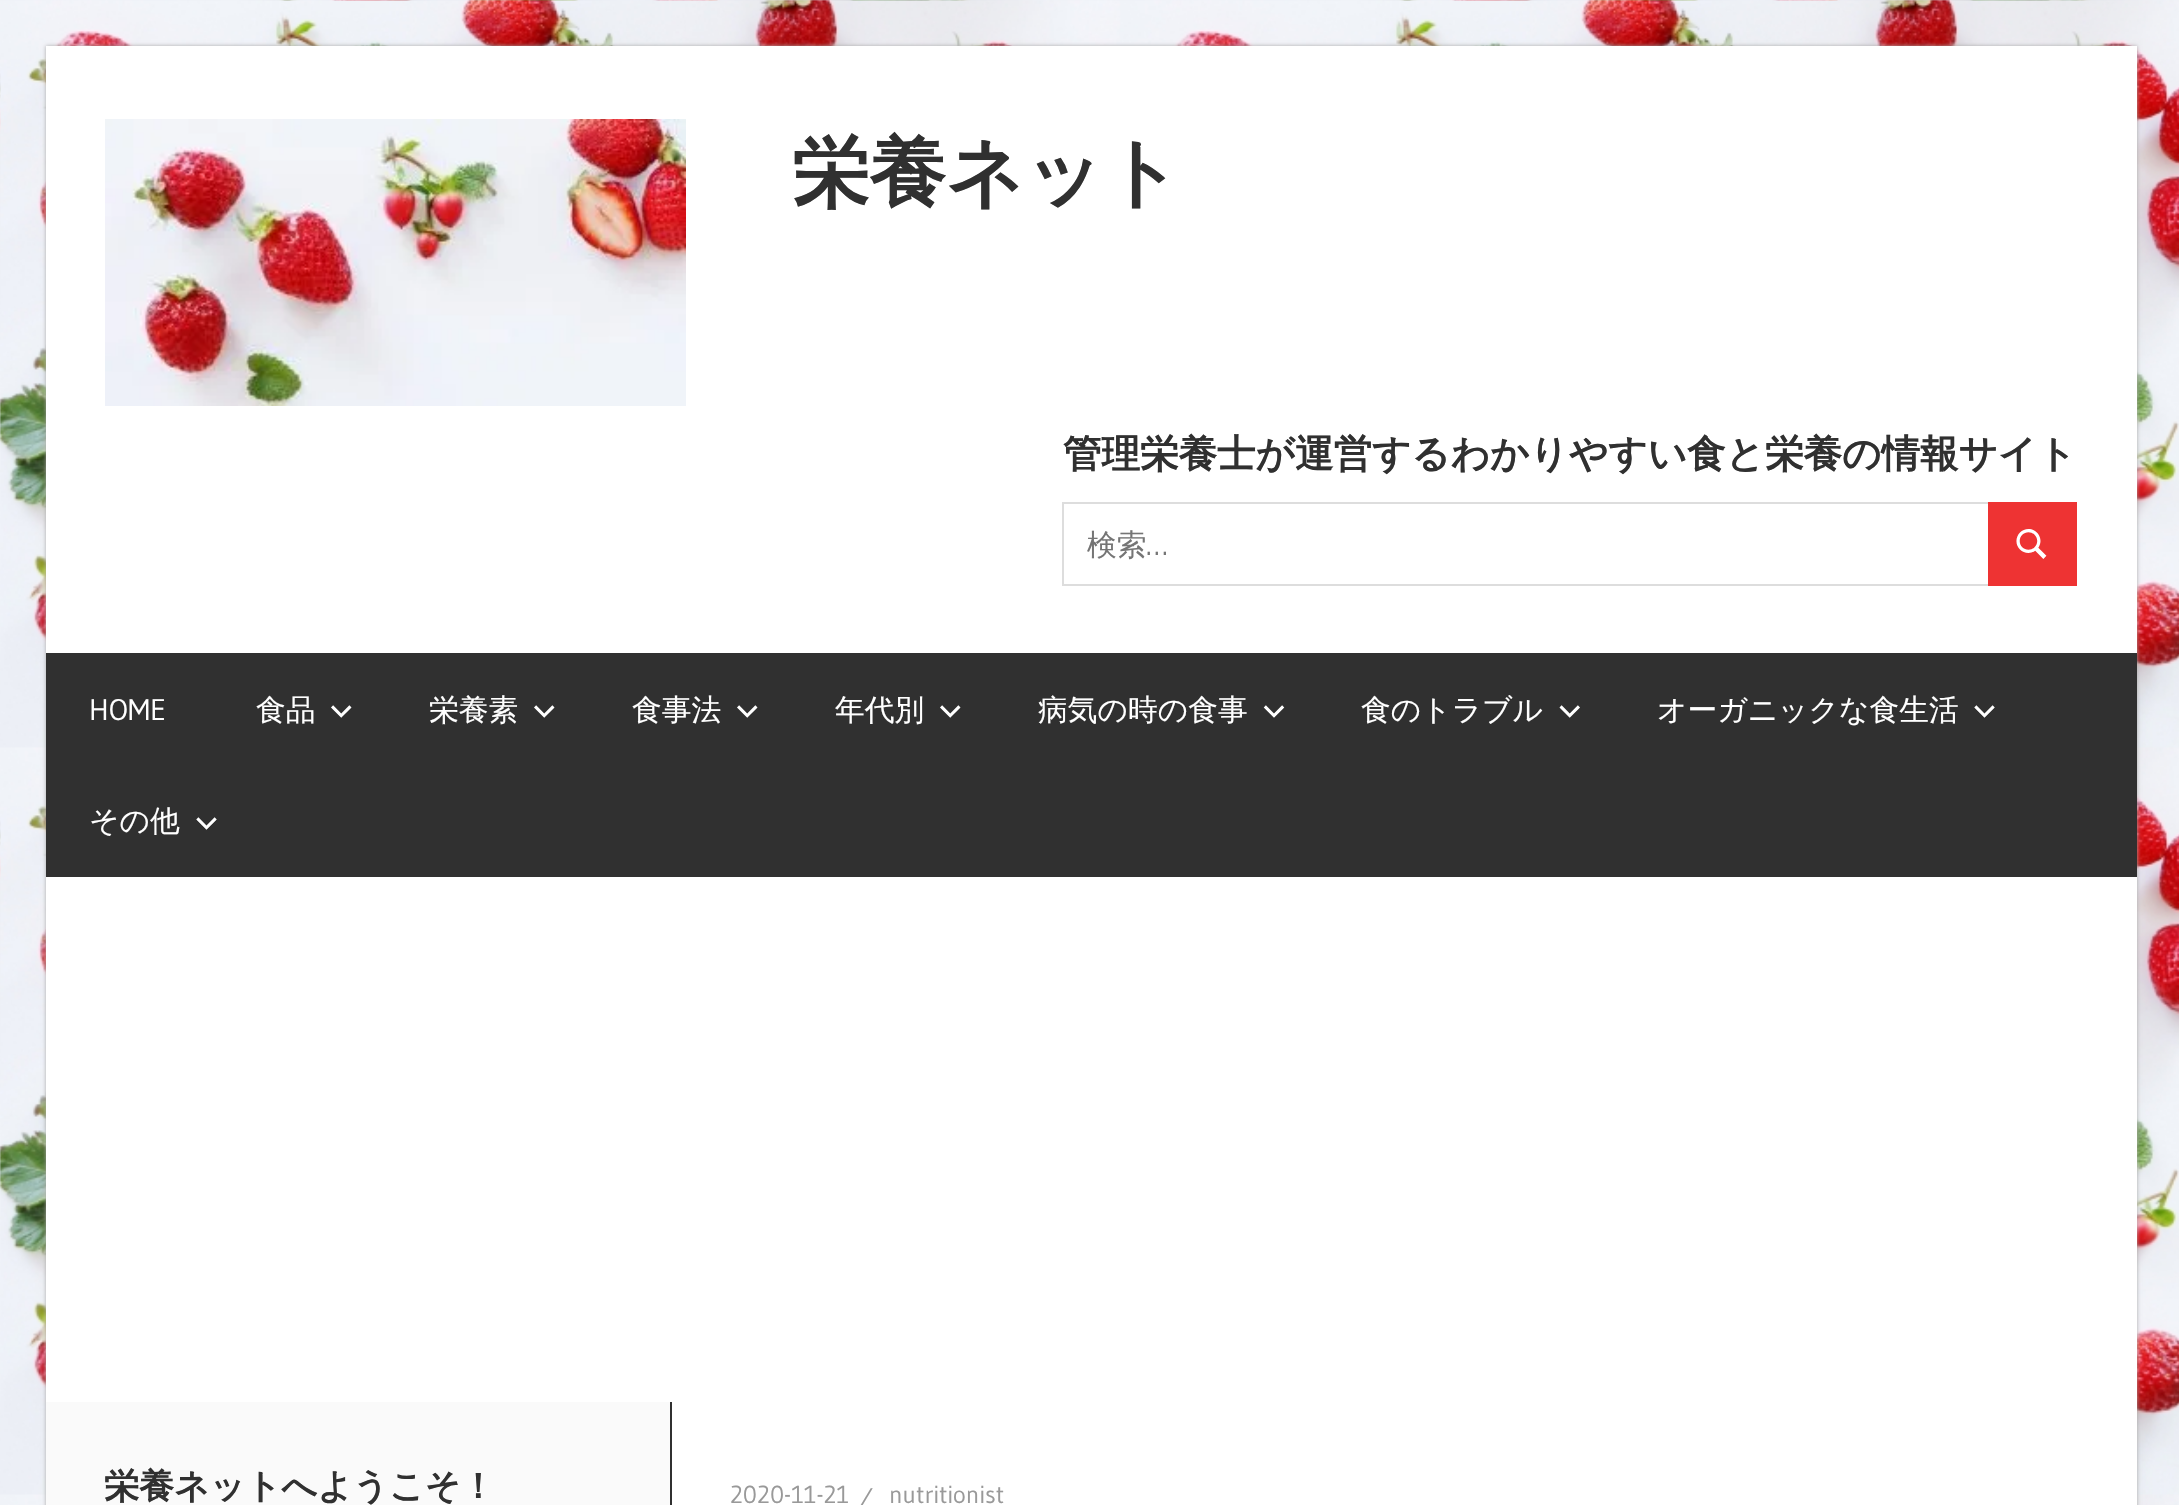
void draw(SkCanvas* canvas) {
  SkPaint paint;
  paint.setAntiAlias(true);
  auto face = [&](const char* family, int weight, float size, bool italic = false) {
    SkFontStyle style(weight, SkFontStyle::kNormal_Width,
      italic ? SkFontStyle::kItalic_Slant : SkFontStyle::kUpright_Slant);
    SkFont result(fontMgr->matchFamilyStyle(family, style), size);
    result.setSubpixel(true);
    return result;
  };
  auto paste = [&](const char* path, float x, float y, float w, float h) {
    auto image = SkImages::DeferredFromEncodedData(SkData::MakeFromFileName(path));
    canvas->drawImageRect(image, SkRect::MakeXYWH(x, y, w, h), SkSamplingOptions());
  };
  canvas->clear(0xffffffff);
  paste("img/1.png", 0, 0, 2179, 1505);
  paint.setColor(0xffaaaaaa);
  paint.setMaskFilter(SkMaskFilter::MakeBlur(kNormal_SkBlurStyle, 2));
  canvas->drawRect(SkRect::MakeXYWH(46, 46, 2091, 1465), paint);
  paint.setMaskFilter(nullptr);
  paint.setColor(0xffffffff);
  canvas->drawRect(SkRect::MakeXYWH(46, 46, 2091, 1459), paint);
  paste("img/2.png", 105, 119, 581, 287);
  paint.setStroke(true);
  paint.setStrokeWidth(2);
  paint.setColor(0xffdddddd);
  canvas->drawRect(SkRect::MakeXYWH(1063, 503, 926, 82), paint);
  paint.setStroke(false);
  paint.setColor(0xffee3333);
  canvas->drawRect(SkRect::MakeXYWH(1988, 502, 89, 84), paint);
  paste("img/3.png", 2016, 529, 31, 30);
  paint.setColor(0xff303030);
  canvas->drawRect(SkRect::MakeXYWH(46, 653, 2091, 224), paint);
  paste("img/4.png", 331, 705, 21, 13);
  paste("img/4.png", 534, 705, 21, 13);
  paste("img/4.png", 737, 705, 21, 13);
  paste("img/4.png", 940, 705, 21, 13);
  paste("img/5.png", 1263, 705, 22, 13);
  paste("img/6.png", 1559, 705, 21, 13);
  paste("img/7.png", 1974, 705, 21, 13);
  paste("img/7.png", 196, 817, 21, 13);
  paint.setColor(0xfffafafa);
  canvas->drawRect(SkRect::MakeXYWH(46, 1402, 624, 103), paint);
  paint.setColor(0xff303030);
  canvas->drawRect(SkRect::MakeXYWH(670, 1402, 2, 103), paint);
  auto f0 = face("WenQuanYi Zen Hei", 700, 77);
  canvas->drawString("栄養ネット", 792, 199, f0, paint);
  auto f1 = face("WenQuanYi Zen Hei", 700, 38.5f);
  canvas->drawString("管理栄養士が運営するわかりやすい食と栄養の情報サイト", 1063, 467, f1, paint);
  auto f2 = face("WenQuanYi Zen Hei", 500, 29.75f);
  paint.setColor(0xff757575);
  canvas->drawString("検索", 1087, 555, f2, paint);
  auto f3 = face("Gudea", 400, 29.75f);
  canvas->drawString("…", 1146, 555, f3, paint);
  paint.setColor(0xffffffff);
  canvas->drawString("HOME", 89, 720, f3, paint);
  {
    const struct { const char* s; float x, y; } items[] = {
      {"食品", 256, 720},
      {"栄養素", 429, 720},
      {"食事法", 632, 720},
      {"年代別", 835, 720},
      {"病気の時の食事", 1038, 720},
      {"食のトラブル", 1361, 720},
      {"オーガニックな食生活", 1657, 720},
      {"その他", 89, 831},
    };
    for (auto [s, x, y] : items) {
      canvas->drawString(s, x, y, f2, paint);
    }
  }
  auto f4 = face("WenQuanYi Zen Hei", 700, 35);
  paint.setColor(0xff303030);
  canvas->drawString("栄養ネットへようこそ！", 104, 1498, f4, paint);
  auto f5 = face("Gudea", 400, 24.5f);
  paint.setColor(0xff999999);
  {
    const struct { const char* s; float x, y; } items[] = {
      {"2020-11-21", 730, 1503},
      {"⁄", 861, 1505},
      {"nutritionist", 889, 1503},
    };
    for (auto [s, x, y] : items) {
      canvas->drawString(s, x, y, f5, paint);
    }
  }
}
